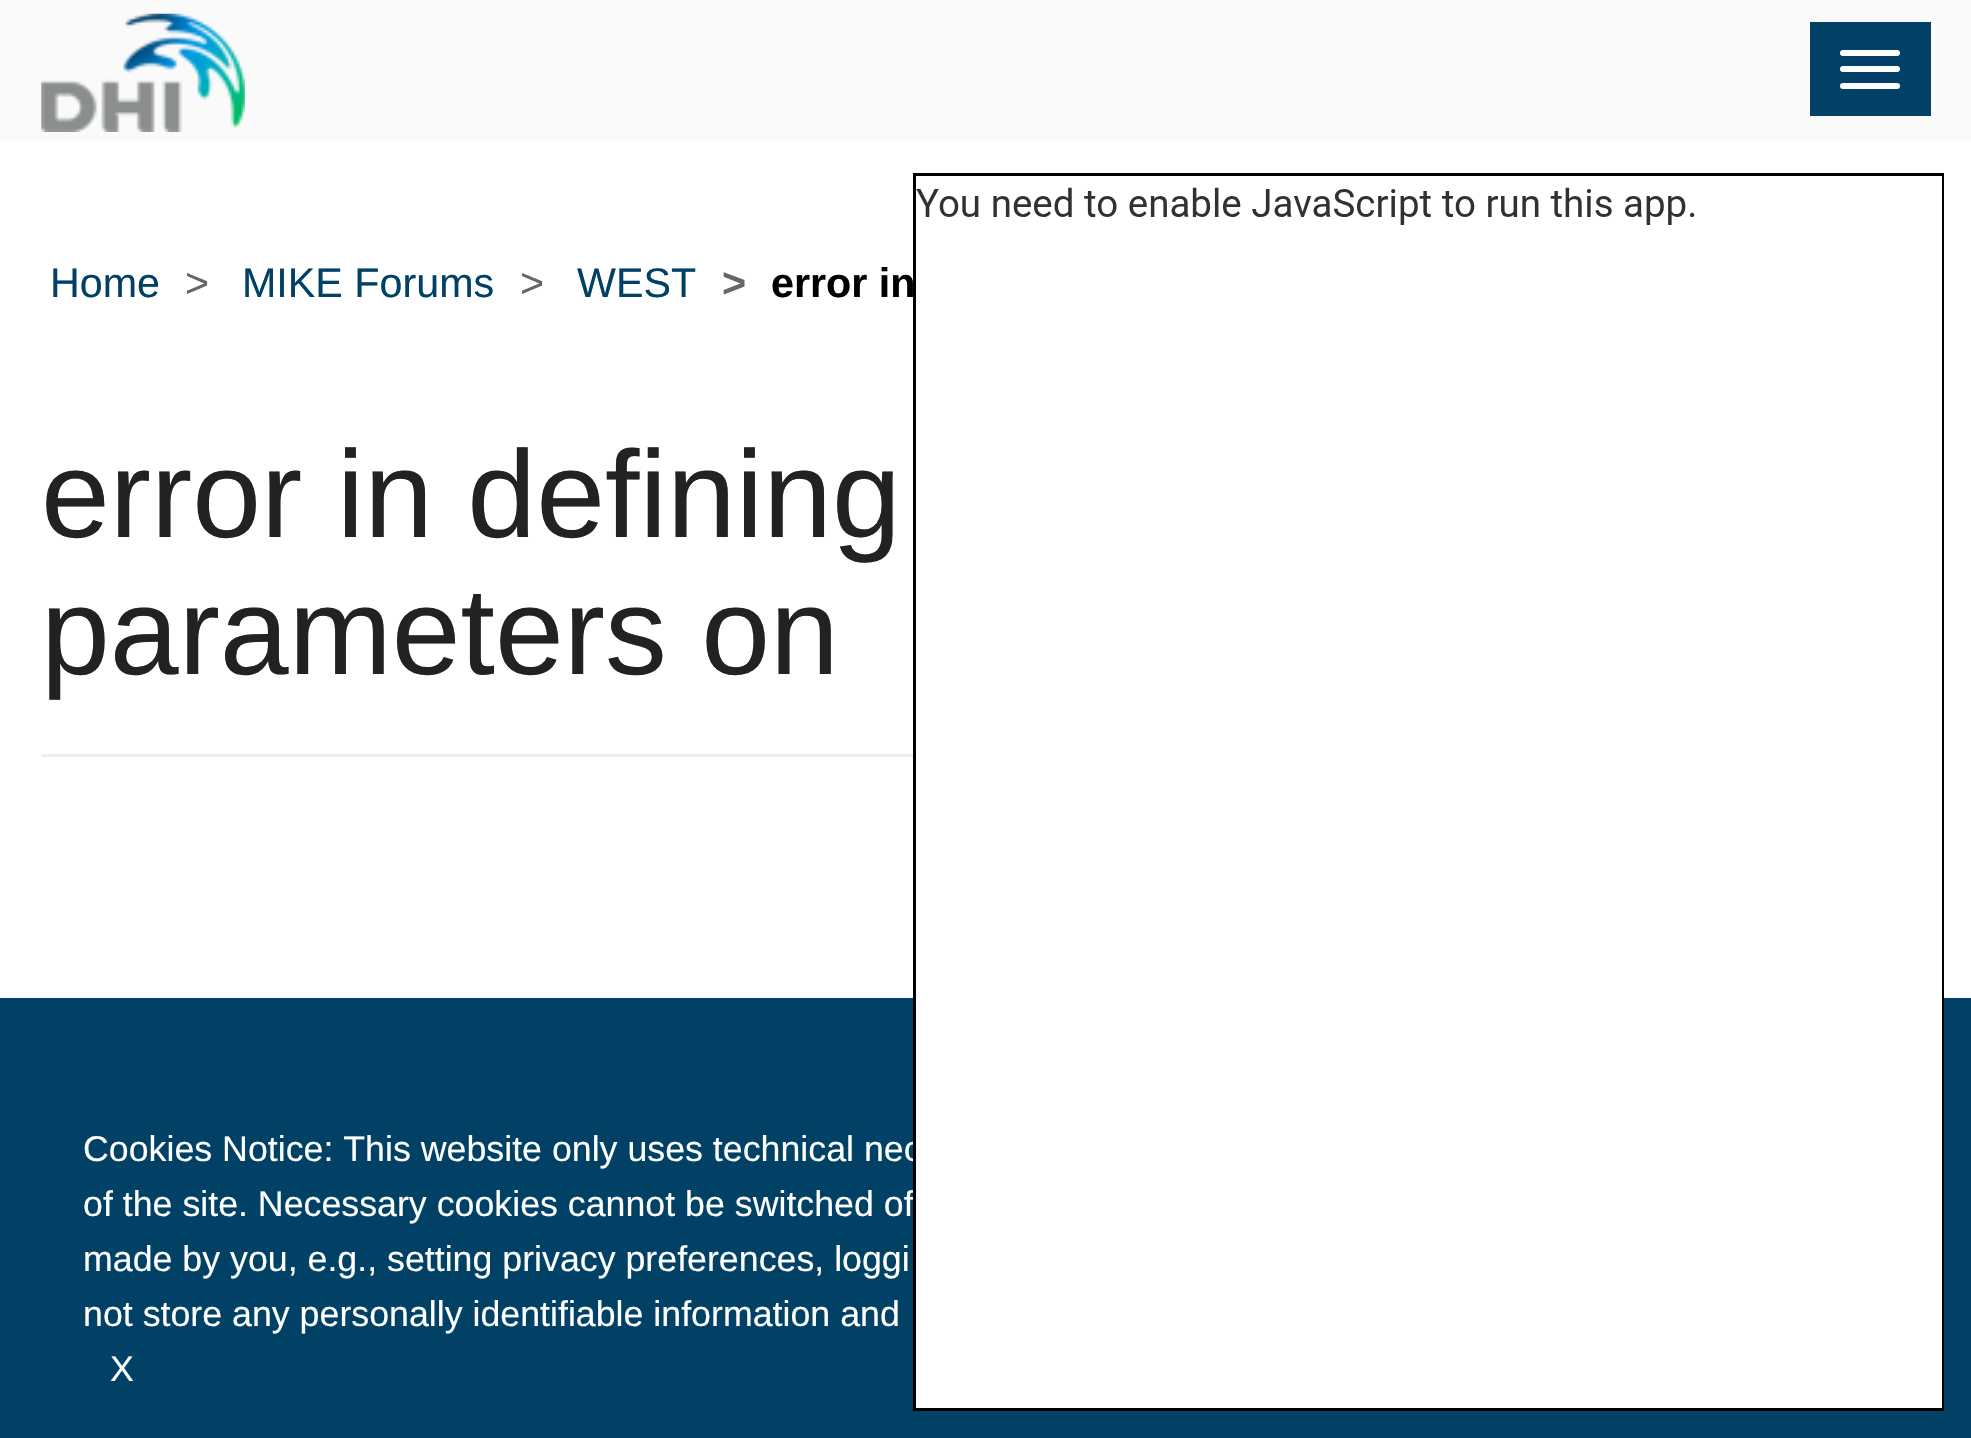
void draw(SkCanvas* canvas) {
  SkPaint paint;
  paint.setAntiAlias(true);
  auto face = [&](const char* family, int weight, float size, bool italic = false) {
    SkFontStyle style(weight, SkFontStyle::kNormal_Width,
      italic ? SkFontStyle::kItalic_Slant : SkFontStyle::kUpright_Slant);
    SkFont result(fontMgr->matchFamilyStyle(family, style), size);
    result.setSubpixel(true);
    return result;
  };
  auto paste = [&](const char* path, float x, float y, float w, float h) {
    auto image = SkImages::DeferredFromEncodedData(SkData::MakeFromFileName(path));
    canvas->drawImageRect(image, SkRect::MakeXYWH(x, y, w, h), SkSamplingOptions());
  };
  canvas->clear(0xffffffff);
  paint.setColor(0xfffafafa);
  canvas->drawRect(SkRect::MakeXYWH(0, 0, 1971, 140), paint);
  paste("img/1.png", 41, 13, 204, 119);
  paint.setColor(0xff004165);
  canvas->drawRect(SkRect::MakeXYWH(1810, 22, 121, 94), paint);
  paint.setColor(0xffffffff);
  canvas->drawRoundRect(SkRect::MakeXYWH(1840, 50, 60, 6), 3, 3, paint);
  canvas->drawRoundRect(SkRect::MakeXYWH(1840, 66, 60, 6), 3, 3, paint);
  canvas->drawRoundRect(SkRect::MakeXYWH(1840, 83, 60, 6), 3, 3, paint);
  paint.setColor(0xffeeeeee);
  canvas->drawRect(SkRect::MakeXYWH(41, 754, 872, 3), paint);
  paint.setColor(0xff004165);
  canvas->drawRect(SkRect::MakeXYWH(0, 998, 1971, 440), paint);
  auto f0 = face("Liberation Sans", 400, 41.25f);
  canvas->drawString("Home", 50, 297, f0, paint);
  paint.setColor(0xff666666);
  canvas->drawString(">", 185, 297, f0, paint);
  paint.setColor(0xff004165);
  canvas->drawString("MIKE Forums", 242, 297, f0, paint);
  paint.setColor(0xff666666);
  canvas->drawString(">", 520, 297, f0, paint);
  paint.setColor(0xff004165);
  canvas->drawString("WEST", 577, 297, f0, paint);
  auto f1 = face("Liberation Sans", 700, 41.25f);
  paint.setColor(0xff666666);
  canvas->drawString(">", 722, 297, f1, paint);
  paint.setColor(0xff000000);
  canvas->drawString("error in", 771, 297, f1, paint);
  auto f2 = face("Liberation Sans", 400, 123.75f);
  paint.setColor(0xff232222);
  canvas->drawString("error in defining", 41, 537, f2, paint);
  canvas->drawString("parameters on", 41, 674, f2, paint);
  auto f3 = face("Liberation Sans", 400, 35.75f);
  paint.setColor(0xffffffff);
  canvas->drawString("Cookies Notice: This website only uses technical nec", 83, 1161, f3, paint);
  canvas->drawString("of the site. Necessary cookies cannot be switched of", 83, 1216, f3, paint);
  paint.setStroke(true);
  paint.setStrokeWidth(3);
  paint.setColor(0xff000000);
  canvas->drawRect(SkRect::MakeXYWH(914.5f, 174.5f, 1028, 1235), paint);
  paste("img/2.png", 916, 176, 1026, 1232);
  paint.setStroke(false);
  paint.setColor(0xffffffff);
  {
    const struct { const char* s; float x, y; } items[] = {
      {"made by you, e.g., setting privacy preferences, loggi", 83, 1271},
      {"not store any personally identifiable information and", 83, 1326},
      {"X", 110, 1381},
    };
    for (auto [s, x, y] : items) {
      canvas->drawString(s, x, y, f3, paint);
    }
  }
}
